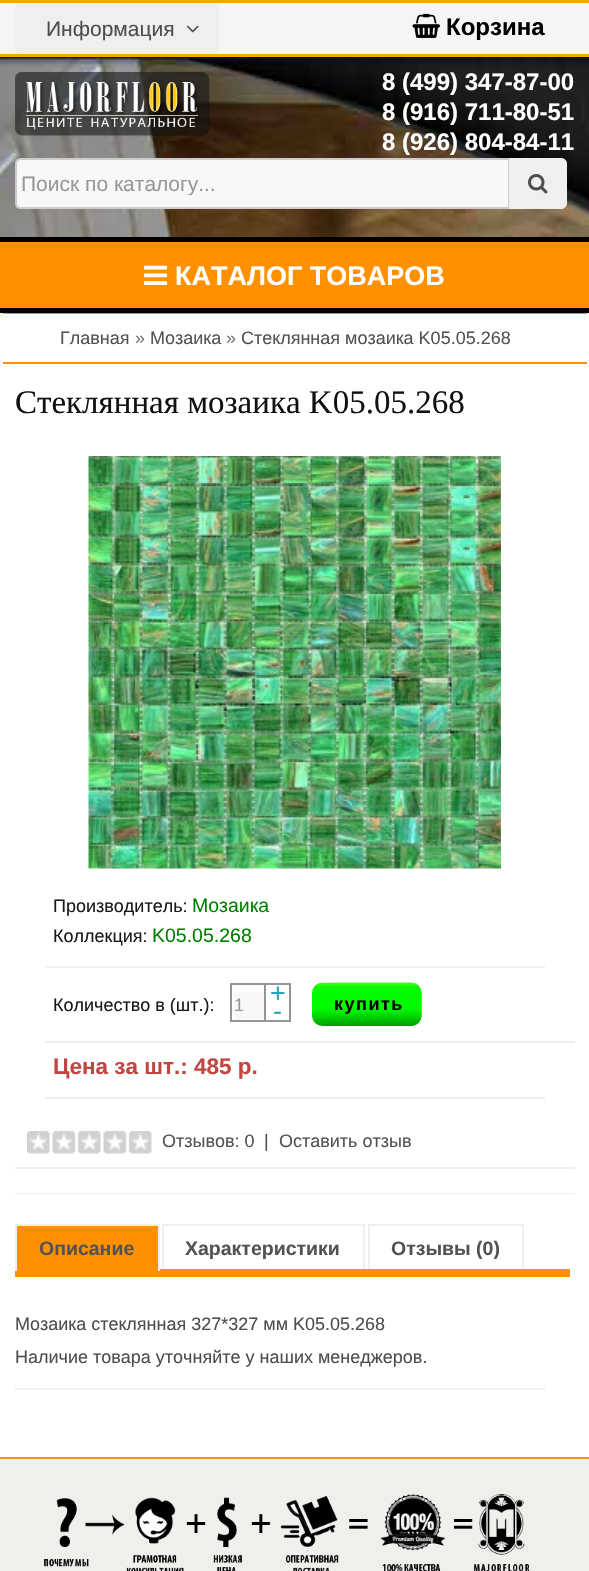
void draw(SkCanvas* canvas) {
  SkPaint paint;
  paint.setAntiAlias(true);
  auto face = [&](const char* family, int weight, float size, bool italic = false) {
    SkFontStyle style(weight, SkFontStyle::kNormal_Width,
      italic ? SkFontStyle::kItalic_Slant : SkFontStyle::kUpright_Slant);
    SkFont result(fontMgr->matchFamilyStyle(family, style), size);
    result.setSubpixel(true);
    return result;
  };
  auto writeSpaced = [&](const char* s, float x, float y, const SkFont& font, const SkPaint& ink, float letter, float word) {
    std::vector<SkGlyphID> glyphs(font.countText(s, strlen(s), SkTextEncoding::kUTF8));
    std::vector<float> xs(glyphs.size());
    font.textToGlyphs(s, strlen(s), SkTextEncoding::kUTF8, glyphs);
    font.getXPos(glyphs, xs, x);
    float extra = 0;
    for (size_t i = 0; i < glyphs.size(); i++) {
      xs[i] += extra;
      extra += letter + word * (glyphs[i] == font.unicharToGlyph(' '));
    }
    canvas->drawTextBlob(SkTextBlob::MakeFromPosHGlyphs(glyphs, xs, y, font), 0, 0, ink);
  };
  auto paste = [&](const char* path, float x, float y, float w, float h) {
    auto image = SkImages::DeferredFromEncodedData(SkData::MakeFromFileName(path));
    canvas->drawImageRect(image, SkRect::MakeXYWH(x, y, w, h), SkSamplingOptions());
  };
  auto shape = [&](const char* data, bool evenOdd = false) {
    SkPath result = *SkParsePath::FromSVGString(data);
    if (evenOdd) result.setFillType(SkPathFillType::kEvenOdd);
    return result;
  };
  canvas->clear(0xffffffff);
  {
    const struct { float x, y, w, h; SkColor color; } items[] = {
      {0, 3, 589, 51, 0xfff5f5f5},
      {0, 0, 589, 3, 0xffffa500},
      {0, 54, 589, 3, 0xffffa500},
    };
    for (auto [x, y, w, h, color] : items) {
      paint.setColor(color);
      canvas->drawRect(SkRect::MakeXYWH(x, y, w, h), paint);
    }
  }
  paint.setColor(0xffefefef);
  canvas->drawRoundRect(SkRect::MakeXYWH(15, 3, 204, 51), 6, 6, paint);
  paste("img/1.png", 187, 25, 12, 8);
  paste("img/2.png", 412, 13, 28, 25);
  paste("img/3.png", 0, 57, 589, 180);
  paste("img/4.png", 15, 72, 195, 65);
  paint.setColor(0xfff8f8f8);
  canvas->drawPath(shape("M21 159H509V208H21C18 208 16 206 16 203V164C16 161 18 159 21 159Z"), paint);
  paint.setStroke(true);
  paint.setStrokeWidth(2);
  paint.setColor(0xffcccccc);
  canvas->drawPath(shape("M21 159H509V208H21C18 208 16 206 16 203V164C16 161 18 159 21 159Z"), paint);
  paint.setStroke(false);
  paint.setColor(0xffefefef);
  canvas->drawPath(shape("M509 158H561C564.5 158 567 160.5 567 164V203C567 206.5 564.5 209 561 209H509Z"), paint);
  paste("img/5.png", 528, 174, 20, 20);
  {
    const struct { float x, y, w, h; SkColor color; } items[] = {
      {0, 242, 589, 66, 0xffff9000},
      {0, 237, 589, 5, 0xff000000},
      {0, 308, 589, 5, 0xff000000},
    };
    for (auto [x, y, w, h, color] : items) {
      paint.setColor(color);
      canvas->drawRect(SkRect::MakeXYWH(x, y, w, h), paint);
    }
  }
  paste("img/6.png", 144, 265, 24, 20);
  paint.setColor(0xffff9000);
  canvas->drawRect(SkRect::MakeXYWH(3, 313, 584, 1), paint);
  canvas->drawRect(SkRect::MakeXYWH(3, 362, 584, 2), paint);
  paste("img/7.png", 88, 456, 413, 413);
  paint.setColor(0xffefefec);
  canvas->drawRect(SkRect::MakeXYWH(45, 966, 500, 2), paint);
  canvas->drawRect(SkRect::MakeXYWH(45, 1041, 530, 2), paint);
  paint.setStroke(true);
  paint.setColor(0xff959595);
  canvas->drawRect(SkRect::MakeXYWH(231, 984, 59, 37), paint);
  paint.setStroke(false);
  {
    const struct { float x, y, w, h; SkColor color; } items[] = {
      {234, 992, 30, 27, 0xfff8f8f8},
      {45, 1097, 500, 2, 0xffefefec},
      {15, 1167, 560, 2, 0xffefefec},
    };
    for (auto [x, y, w, h, color] : items) {
      paint.setColor(color);
      canvas->drawRect(SkRect::MakeXYWH(x, y, w, h), paint);
    }
  }
  paste("img/10.png", 27, 1131, 125, 23);
  {
    const struct { float x, y, w, h; SkColor color; } items[] = {
      {15, 1193, 560, 1, 0xffefefec},
      {15, 1269, 555, 8, 0xffff9000},
      {17, 1226, 141, 43, 0xffff9000},
      {15, 1224, 144, 2, 0xffefefec},
      {158, 1224, 2, 47, 0xffefefec},
      {15, 1224, 2, 47, 0xffefefec},
      {162, 1224, 203, 2, 0xffefefec},
      {162, 1224, 2, 45, 0xffefefec},
      {15, 1388, 530, 2, 0xffefefec},
      {0, 1459, 589, 112, 0xffefefec},
      {0, 1457, 589, 2, 0xffff8d1e},
    };
    for (auto [x, y, w, h, color] : items) {
      paint.setColor(color);
      canvas->drawRect(SkRect::MakeXYWH(x, y, w, h), paint);
    }
  }
  paste("img/11.png", 43, 1494, 487, 77);
  paint.setColor(0xffd1d6e1);
  paint.setMaskFilter(SkMaskFilter::MakeBlur(kNormal_SkBlurStyle, 150));
  canvas->drawRect(SkRect::MakeXYWH(-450, 0, 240, 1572), paint);
  paint.setMaskFilter(nullptr);
  paint.setColor(0xff959595);
  canvas->drawRect(SkRect::MakeXYWH(264, 984, 2, 36), paint);
  paste("img/8.png", 312, 982, 110, 44);
  paste("img/9.png", 329, 982, 93, 44);
  {
    const struct { float x, y, w, h; SkColor color; } items[] = {
      {363, 1224, 2, 45, 0xffefefec},
      {368, 1224, 156, 2, 0xffefefec},
      {522, 1224, 2, 45, 0xffefefec},
      {368, 1224, 2, 45, 0xffefefec},
    };
    for (auto [x, y, w, h, color] : items) {
      paint.setColor(color);
      canvas->drawRect(SkRect::MakeXYWH(x, y, w, h), paint);
    }
  }
  auto f0 = face("Liberation Sans", 400, 21);
  paint.setColor(0xff4d4d4d);
  canvas->drawString("Информация", 46, 36, f0, paint);
  auto f1 = face("Liberation Sans", 700, 24);
  paint.setColor(0xff000000);
  canvas->drawString("Корзина", 446, 35, f1, paint);
  paint.setColor(0xffffffff);
  {
    const struct { const char* s; float x, y; } items[] = {
      {"8 (499) 347-87-00", 382, 90},
      {"8 (916) 711-80-51", 382, 120},
      {"8 (926) 804-84-11", 382, 150},
    };
    for (auto [s, x, y] : items) {
      canvas->drawString(s, x, y, f1, paint);
    }
  }
  canvas->save();
  canvas->clipRect(SkRect::MakeXYWH(21, 171, 483, 24));
  paint.setColor(0xff999999);
  canvas->drawString("Поиск по каталогу...", 21, 191, f0, paint);
  canvas->restore();
  auto f2 = face("Liberation Sans", 700, 27);
  paint.setColor(0xffffffff);
  canvas->drawString("КАТАЛОГ ТОВАРОВ", 175, 285, f2, paint);
  auto f3 = face("Liberation Sans", 400, 18);
  paint.setColor(0xff535353);
  canvas->drawString("Главная", 60, 344, f3, paint);
  paint.setColor(0xff747474);
  canvas->drawString("»", 135, 344, f3, paint);
  paint.setColor(0xff535353);
  canvas->drawString("Мозаика", 150, 344, f3, paint);
  paint.setColor(0xff747474);
  canvas->drawString("»", 226, 344, f3, paint);
  paint.setColor(0xff535353);
  canvas->drawString("Стеклянная мозаика K05.05.268", 241, 344, f3, paint);
  auto f4 = face("Liberation Serif", 400, 33);
  paint.setColor(0xff111111);
  canvas->drawString("Стеклянная мозаика K05.05.268", 15, 413, f4, paint);
  paint.setColor(0xff191919);
  canvas->drawString("Производитель:", 53, 912, f3, paint);
  auto f5 = face("Liberation Sans", 400, 19.5f);
  paint.setColor(0xff008000);
  canvas->drawString("Мозаика", 192, 912, f5, paint);
  paint.setColor(0xff191919);
  canvas->drawString("Коллекция:", 53, 942, f3, paint);
  paint.setColor(0xff008000);
  canvas->drawString("K05.05.268", 152, 942, f5, paint);
  paint.setColor(0xff191919);
  canvas->drawString("Количество в (шт.):", 53, 1011, f3, paint);
  paint.setColor(0xff999999);
  canvas->drawString("1", 234, 1011, f3, paint);
  auto f6 = face("Liberation Sans", 400, 27);
  paint.setColor(0xff27a3bd);
  canvas->drawString("+", 270, 1002, f6, paint);
  canvas->drawString("-", 273, 1020, f6, paint);
  auto f7 = face("Liberation Sans", 700, 18);
  paint.setColor(0xff000000);
  writeSpaced("купить", 334, 1010, f7, paint, 1.5f, 0);
  auto f8 = face("Liberation Sans", 700, 22.5f);
  paint.setColor(0xffc14642);
  canvas->drawString("Цена за шт.: 485 р.", 53, 1074, f8, paint);
  paint.setColor(0xff535353);
  canvas->drawString("Отзывов: 0", 162, 1147, f3, paint);
  paint.setColor(0xff4d4d4d);
  canvas->drawString("|", 264, 1147, f3, paint);
  paint.setColor(0xff535353);
  canvas->drawString("Оставить отзыв", 279, 1147, f3, paint);
  auto f9 = face("Liberation Sans", 700, 19.5f);
  {
    const struct { const char* s; float x, y; } items[] = {
      {"Описание", 39, 1255},
      {"Характеристики", 185, 1255},
      {"Отзывы (0)", 391, 1255},
    };
    for (auto [s, x, y] : items) {
      canvas->drawString(s, x, y, f9, paint);
    }
  }
  paint.setColor(0xff4d4d4d);
  canvas->drawString("Мозаика стеклянная 327*327 мм K05.05.268", 15, 1330, f3, paint);
  canvas->drawString("Наличие товара уточняйте у наших менеджеров.", 15, 1363, f3, paint);
}
